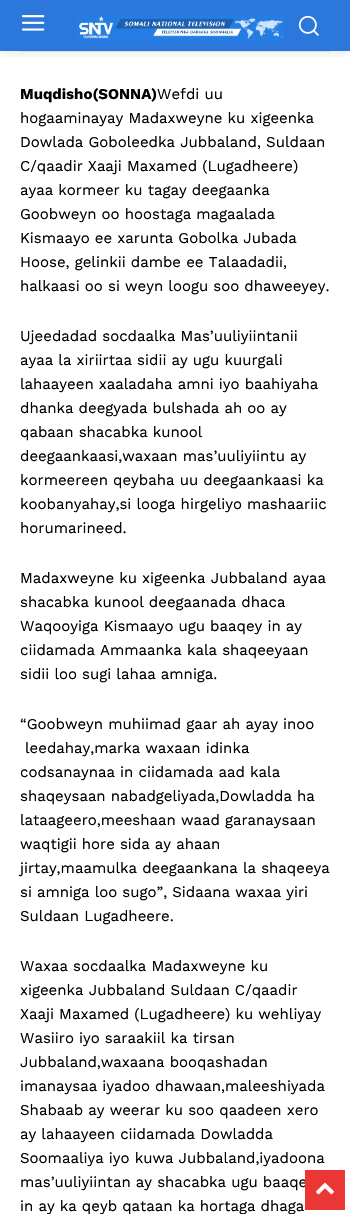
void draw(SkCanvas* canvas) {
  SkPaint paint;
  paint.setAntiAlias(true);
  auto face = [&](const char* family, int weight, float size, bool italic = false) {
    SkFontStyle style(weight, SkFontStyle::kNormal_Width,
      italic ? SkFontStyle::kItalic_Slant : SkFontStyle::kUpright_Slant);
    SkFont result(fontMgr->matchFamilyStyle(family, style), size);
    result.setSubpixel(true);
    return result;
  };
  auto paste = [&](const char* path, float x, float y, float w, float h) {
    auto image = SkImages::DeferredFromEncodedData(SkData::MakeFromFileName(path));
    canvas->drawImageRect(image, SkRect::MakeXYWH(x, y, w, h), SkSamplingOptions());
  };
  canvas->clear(0xffffffff);
  paint.setColor(0xff2b77db);
  canvas->drawRect(SkRect::MakeXYWH(0, 0, 350, 51), paint);
  paste("img/1.png", 22, 15, 23, 16);
  paste("img/2.png", 77, 15, 207, 27);
  paste("img/3.png", 298, 15, 21, 21);
  paint.setColor(0xffeaeaea);
  canvas->drawRect(SkRect::MakeXYWH(20, 51, 310, 1), paint);
  canvas->save();
  canvas->clipRect(SkRect::MakeXYWH(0, 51, 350, 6));
  paint.setColor(0x17000000);
  paint.setMaskFilter(SkMaskFilter::MakeBlur(kNormal_SkBlurStyle, 5));
  canvas->drawRect(SkRect::MakeXYWH(0, 2, 350, 51), paint);
  paint.setMaskFilter(nullptr);
  canvas->restore();
  auto f0 = face("Work Sans", 700, 15);
  paint.setColor(0xff000000);
  canvas->drawString("Muqdisho(SONNA)", 20, 99, f0, paint);
  auto f1 = face("Work Sans", 400, 15);
  {
    const struct { const char* s; float x, y; } items[] = {
      {"Wefdi uu", 157, 99},
      {"hogaaminayay Madaxweyne ku xigeenka", 20, 123},
      {"Dowlada Goboleedka Jubbaland, Suldaan", 20, 147},
      {"C/qaadir Xaaji Maxamed (Lugadheere)", 20, 171},
      {"ayaa kormeer ku tagay deegaanka", 20, 195},
      {"Goobweyn oo hoostaga magaalada", 20, 219},
      {"Kismaayo ee xarunta Gobolka Jubada", 20, 243},
      {"Hoose, gelinkii dambe ee Talaadadii,", 20, 267},
      {"halkaasi oo si weyn loogu soo dhaweeyey.", 20, 291},
      {"Ujeedadad socdaalka Mas’uuliyiintanii", 20, 341},
      {"ayaa la xiriirtaa sidii ay ugu kuurgali", 20, 365},
      {"lahaayeen xaaladaha amni iyo baahiyaha", 20, 389},
      {"dhanka deegyada bulshada ah oo ay", 20, 413},
      {"qabaan shacabka kunool", 20, 437},
      {"deegaankaasi,waxaan mas’uuliyiintu ay", 20, 461},
      {"kormeereen qeybaha uu deegaankaasi ka", 20, 485},
      {"koobanyahay,si looga hirgeliyo mashaariic", 20, 509},
      {"horumarineed.", 20, 533},
      {"Madaxweyne ku xigeenka Jubbaland ayaa", 20, 583},
      {"shacabka kunool deegaanada dhaca", 20, 607},
      {"Waqooyiga Kismaayo ugu baaqey in ay", 20, 631},
      {"ciidamada Ammaanka kala shaqeeyaan", 20, 655},
      {"sidii loo sugi lahaa amniga.", 20, 679},
      {"“Goobweyn muhiimad gaar ah ayay inoo", 20, 729},
      {"leedahay,marka waxaan idinka", 25, 753},
      {"codsanaynaa in ciidamada aad kala", 20, 777},
      {"shaqeysaan nabadgeliyada,Dowladda ha", 20, 801},
      {"lataageero,meeshaan waad garanaysaan", 20, 825},
      {"waqtigii hore sida ay ahaan", 20, 849},
      {"jirtay,maamulka deegaankana la shaqeeya", 20, 873},
      {"si amniga loo sugo”, Sidaana waxaa yiri", 20, 897},
      {"Suldaan Lugadheere.", 20, 921},
      {"Waxaa socdaalka Madaxweyne ku", 20, 971},
      {"xigeenka Jubbaland Suldaan C/qaadir", 20, 995},
      {"Xaaji Maxamed (Lugadheere) ku wehliyay", 20, 1019},
      {"Wasiiro iyo saraakiil ka tirsan", 20, 1043},
      {"Jubbaland,waxaana booqashadan", 20, 1067},
      {"imanaysaa iyadoo dhawaan,maleeshiyada", 20, 1091},
      {"Shabaab ay weerar ku soo qaadeen xero", 20, 1115},
      {"ay lahaayeen ciidamada Dowladda", 20, 1139},
      {"Soomaaliya iyo kuwa Jubbaland,iyadoona", 20, 1163},
      {"mas’uuliyiintan ay shacabka ugu baaqe", 20, 1187},
      {"in ay ka qeyb qataan ka hortaga dhaga", 20, 1211},
    };
    for (auto [s, x, y] : items) {
      canvas->drawString(s, x, y, f1, paint);
    }
  }
  paint.setColor(0xffec3535);
  canvas->drawRect(SkRect::MakeXYWH(305, 1170, 40, 40), paint);
  paste("img/4.png", 316, 1182, 18, 13);
}
